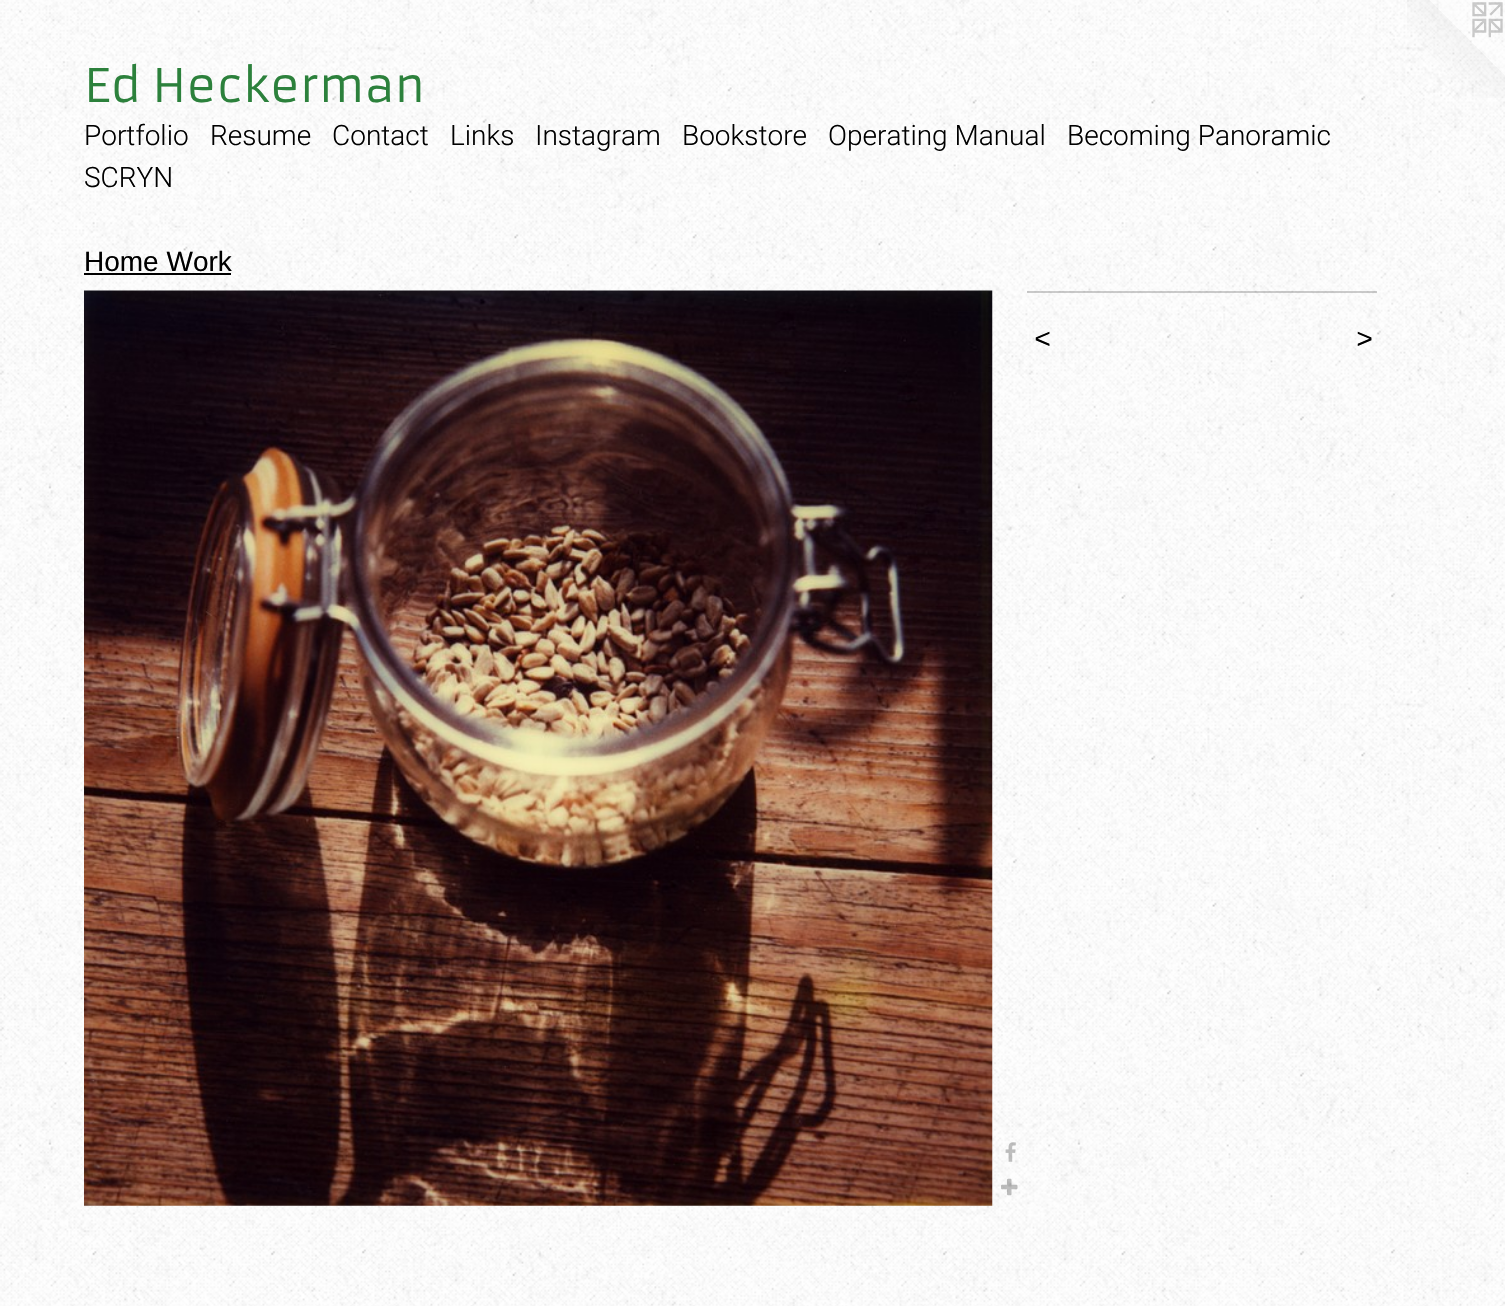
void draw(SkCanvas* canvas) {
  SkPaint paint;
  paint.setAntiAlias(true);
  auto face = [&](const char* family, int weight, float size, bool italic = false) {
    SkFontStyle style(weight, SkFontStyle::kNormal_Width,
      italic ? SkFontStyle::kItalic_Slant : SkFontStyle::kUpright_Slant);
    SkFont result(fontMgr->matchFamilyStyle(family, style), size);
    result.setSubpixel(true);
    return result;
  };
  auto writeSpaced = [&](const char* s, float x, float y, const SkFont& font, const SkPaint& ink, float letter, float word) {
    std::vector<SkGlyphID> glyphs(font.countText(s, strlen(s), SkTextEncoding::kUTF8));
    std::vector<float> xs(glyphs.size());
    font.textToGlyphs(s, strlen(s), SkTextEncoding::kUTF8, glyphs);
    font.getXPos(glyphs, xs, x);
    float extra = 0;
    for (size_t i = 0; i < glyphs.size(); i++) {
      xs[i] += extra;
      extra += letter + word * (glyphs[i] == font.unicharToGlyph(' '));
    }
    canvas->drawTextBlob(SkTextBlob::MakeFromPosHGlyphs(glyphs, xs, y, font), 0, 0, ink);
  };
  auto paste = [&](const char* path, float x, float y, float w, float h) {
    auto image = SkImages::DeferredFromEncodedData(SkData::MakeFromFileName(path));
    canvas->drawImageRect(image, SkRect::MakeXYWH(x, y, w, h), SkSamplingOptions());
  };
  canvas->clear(0xffffffff);
  paste("img/1.png", 0, 0, 1505, 1306);
  paste("img/2.png", 1407, 0, 98, 98);
  paint.setColor(0xff000000);
  canvas->drawRect(SkRect::MakeXYWH(84, 273, 147, 2), paint);
  paste("img/3.png", 84, 290, 909, 916);
  paste("img/4.png", 1005, 1142, 11, 20);
  paste("img/5.png", 1001, 1178, 17, 18);
  paint.setColor(0x33000000);
  canvas->drawRect(SkRect::MakeXYWH(1027, 291, 350, 2), paint);
  auto f0 = face("Armata", 400, 45.5f);
  paint.setColor(0xff2c813c);
  canvas->drawString("Ed Heckerman", 84, 102, f0, paint);
  auto f1 = face("Roboto", 300, 28);
  paint.setColor(0xff000000);
  {
    const struct { const char* s; float x, y; } items[] = {
      {"Portfolio", 84, 145},
      {"Resume", 210, 145},
      {"Contact", 332, 145},
      {"Links", 450, 145},
      {"Instagram", 535, 145},
      {"Bookstore", 682, 145},
      {"Operating Manual", 828, 145},
      {"Becoming Panoramic", 1067, 145},
      {"SCRYN", 84, 187},
    };
    for (auto [s, x, y] : items) {
      canvas->drawString(s, x, y, f1, paint);
    }
  }
  auto f2 = face("Liberation Sans", 400, 28);
  canvas->drawString("Home Work", 84, 271, f2, paint);
  auto f3 = face("Liberation Sans", 400, 28, true);
  writeSpaced("<", 1034, 348, f3, paint, 2, 0);
  writeSpaced(">", 1356, 348, f3, paint, 2, 0);
}
